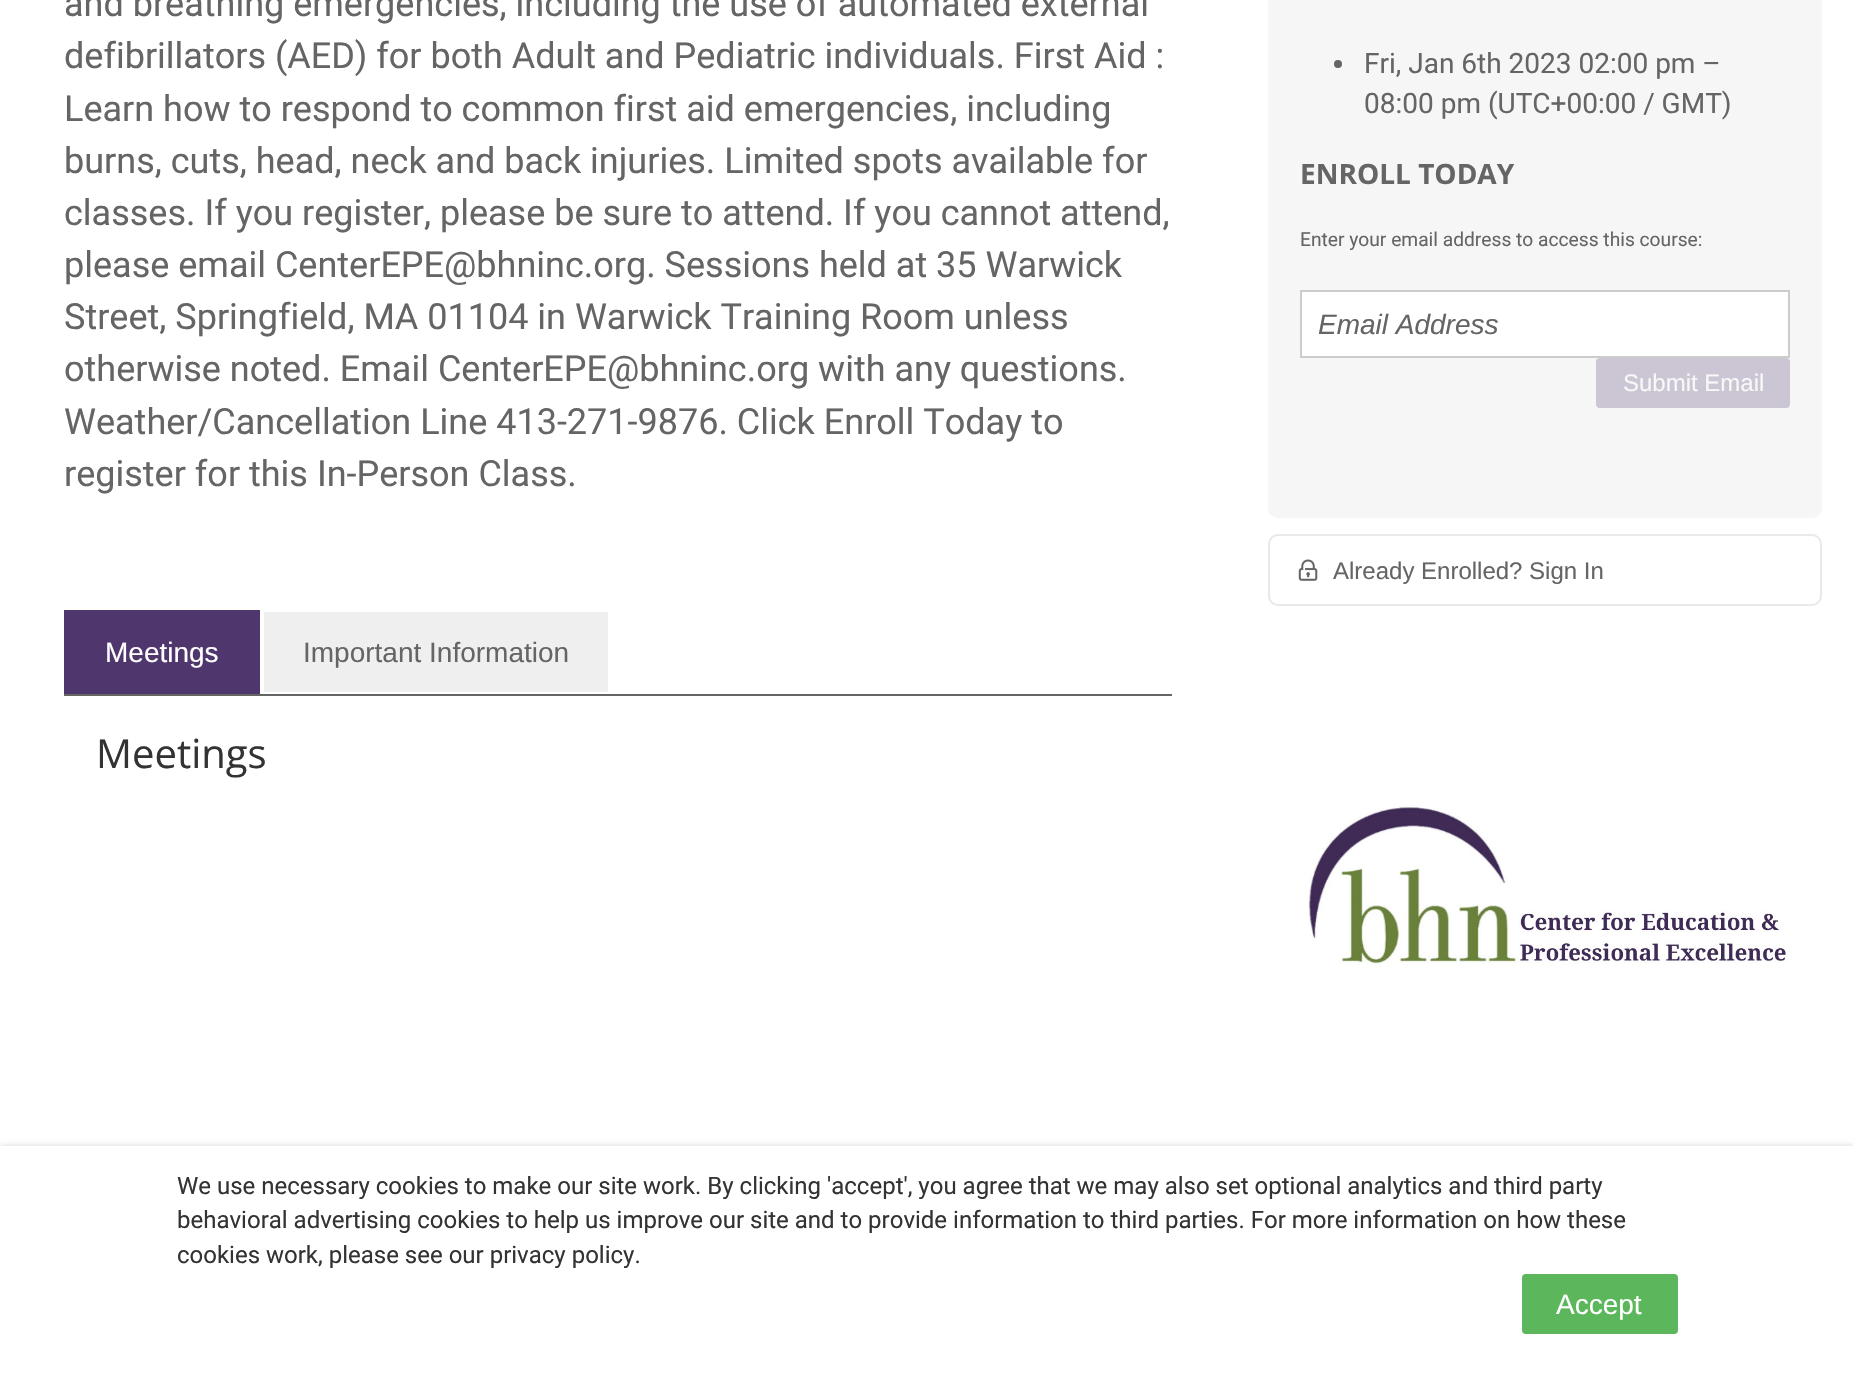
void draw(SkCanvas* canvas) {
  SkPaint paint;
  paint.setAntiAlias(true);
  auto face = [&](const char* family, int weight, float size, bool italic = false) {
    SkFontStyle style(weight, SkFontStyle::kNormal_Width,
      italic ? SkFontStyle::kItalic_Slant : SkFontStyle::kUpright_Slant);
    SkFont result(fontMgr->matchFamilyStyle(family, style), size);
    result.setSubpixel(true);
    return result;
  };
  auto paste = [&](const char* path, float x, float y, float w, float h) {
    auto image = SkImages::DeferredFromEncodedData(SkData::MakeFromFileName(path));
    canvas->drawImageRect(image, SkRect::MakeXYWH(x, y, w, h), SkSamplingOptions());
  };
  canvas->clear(0xffffffff);
  {
    const struct { float x, y, w, h; SkColor color; } items[] = {
      {64, 694, 1108, 2, 0xff656565},
      {64, 610, 196, 84, 0xff4f376e},
      {264, 612, 344, 80, 0xffefefef},
    };
    for (auto [x, y, w, h, color] : items) {
      paint.setColor(color);
      canvas->drawRect(SkRect::MakeXYWH(x, y, w, h), paint);
    }
  }
  paint.setColor(0xfff6f6f6);
  canvas->drawRoundRect(SkRect::MakeXYWH(1268, -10, 554, 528), 10, 10, paint);
  paint.setColor(0xff656565);
  canvas->drawCircle(1338, 64, 4, paint);
  paint.setColor(0xffffffff);
  canvas->drawRect(SkRect::MakeXYWH(1301, 291, 488, 66), paint);
  paint.setStroke(true);
  paint.setStrokeWidth(2);
  paint.setColor(0xffcccccc);
  canvas->drawRect(SkRect::MakeXYWH(1301, 291, 488, 66), paint);
  paint.setStroke(false);
  paint.setColor(0xffccc6d4);
  canvas->drawRoundRect(SkRect::MakeXYWH(1597, 359, 192, 48), 3, 3, paint);
  paint.setStroke(true);
  canvas->drawRoundRect(SkRect::MakeXYWH(1597, 359, 192, 48), 3, 3, paint);
  paint.setColor(0xffe9e9e9);
  canvas->drawRoundRect(SkRect::MakeXYWH(1269, 535, 552, 70), 9, 9, paint);
  paste("img/1.png", 1298, 559, 20, 22);
  paste("img/2.png", 1308, 805, 481, 163);
  paint.setStroke(false);
  paint.setMaskFilter(SkMaskFilter::MakeBlur(kNormal_SkBlurStyle, 2));
  canvas->drawRect(SkRect::MakeXYWH(0, 1144, 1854, 244), paint);
  paint.setMaskFilter(nullptr);
  paint.setColor(0xffffffff);
  canvas->drawRect(SkRect::MakeXYWH(0, 1146, 1853, 243), paint);
  paint.setColor(0xff5bb65c);
  canvas->drawRoundRect(SkRect::MakeXYWH(1522, 1274, 156, 60), 4, 4, paint);
  auto f0 = face("Roboto", 400, 36);
  paint.setColor(0xff656565);
  {
    const struct { const char* s; float x, y; } items[] = {
      {"and breathing emergencies, including the use of automated external", 64, 16},
      {"defibrillators (AED) for both Adult and Pediatric individuals. First Aid :", 64, 68},
      {"Learn how to respond to common first aid emergencies, including", 64, 121},
      {"burns, cuts, head, neck and back injuries. Limited spots available for", 64, 173},
      {"classes. If you register, please be sure to attend. If you cannot attend,", 64, 225},
      {"please email CenterEPE@bhninc.org. Sessions held at 35 Warwick", 64, 277},
      {"Street, Springfield, MA 01104 in Warwick Training Room unless", 64, 329},
      {"otherwise noted. Email CenterEPE@bhninc.org with any questions.", 64, 381},
      {"Weather/Cancellation Line 413-271-9876. Click Enroll Today to", 64, 434},
      {"register for this In-Person Class.", 64, 486},
    };
    for (auto [s, x, y] : items) {
      canvas->drawString(s, x, y, f0, paint);
    }
  }
  auto f1 = face("Liberation Sans", 400, 28);
  paint.setColor(0xffffffff);
  canvas->drawString("Meetings", 105, 662, f1, paint);
  paint.setColor(0xff656565);
  canvas->drawString("Important Information", 303, 662, f1, paint);
  auto f2 = face("Open Sans", 400, 40);
  paint.setColor(0xff333333);
  canvas->drawString("Meetings", 96, 768, f2, paint);
  auto f3 = face("Roboto", 400, 28);
  paint.setColor(0xff656565);
  canvas->drawString("Fri, Jan 6th 2023 02:00 pm –", 1364, 73, f3, paint);
  canvas->drawString("08:00 pm (UTC+00:00 / GMT)", 1364, 113, f3, paint);
  auto f4 = face("Open Sans", 700, 28);
  canvas->drawString("ENROLL TODAY", 1300, 184, f4, paint);
  auto f5 = face("Roboto", 400, 19.2f);
  canvas->drawString("Enter your email address to access this course:", 1300, 246, f5, paint);
  auto f6 = face("Liberation Sans", 400, 28, true);
  canvas->drawString("Email Address", 1318, 334, f6, paint);
  auto f7 = face("Liberation Sans", 400, 24);
  paint.setColor(0xfff8f8f8);
  canvas->drawString("Submit Email", 1623, 391, f7, paint);
  paint.setColor(0xff656565);
  canvas->drawString("Already Enrolled? Sign In", 1333, 579, f7, paint);
  auto f8 = face("Roboto", 400, 24);
  paint.setColor(0xff333333);
  {
    const struct { const char* s; float x, y; } items[] = {
      {"We use necessary cookies to make our site work. By clicking 'accept', you agree that we may also set optional analytics and third party", 177, 1194},
      {"behavioral advertising cookies to help us improve our site and to provide information to third parties. For more information on how these", 177, 1228},
      {"cookies work, please see our privacy policy.", 177, 1263},
    };
    for (auto [s, x, y] : items) {
      canvas->drawString(s, x, y, f8, paint);
    }
  }
  paint.setColor(0xffffffff);
  canvas->drawString("Accept", 1556, 1314, f1, paint);
}
